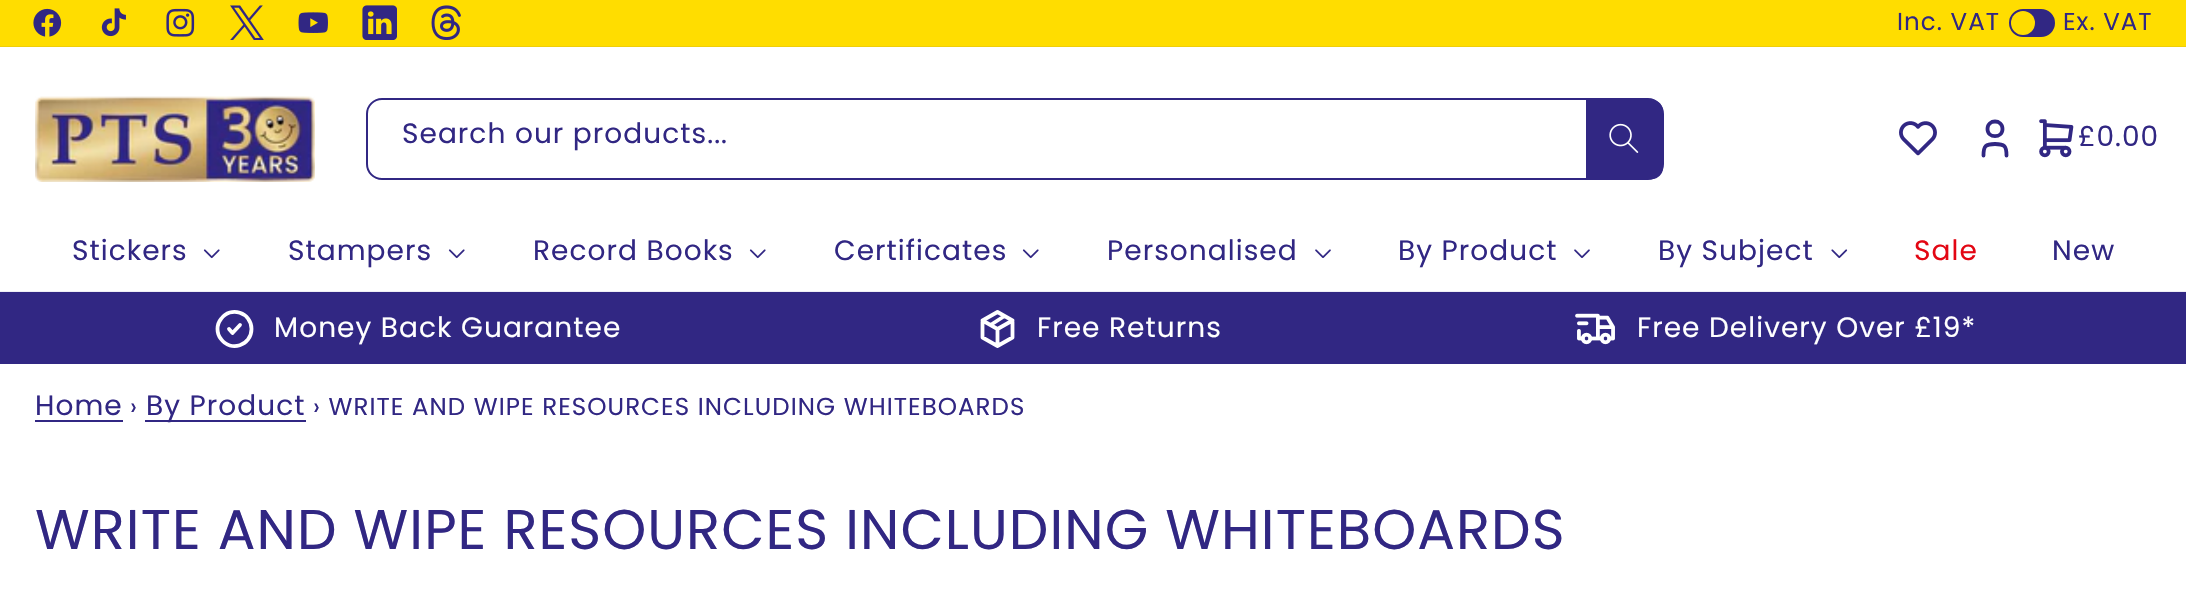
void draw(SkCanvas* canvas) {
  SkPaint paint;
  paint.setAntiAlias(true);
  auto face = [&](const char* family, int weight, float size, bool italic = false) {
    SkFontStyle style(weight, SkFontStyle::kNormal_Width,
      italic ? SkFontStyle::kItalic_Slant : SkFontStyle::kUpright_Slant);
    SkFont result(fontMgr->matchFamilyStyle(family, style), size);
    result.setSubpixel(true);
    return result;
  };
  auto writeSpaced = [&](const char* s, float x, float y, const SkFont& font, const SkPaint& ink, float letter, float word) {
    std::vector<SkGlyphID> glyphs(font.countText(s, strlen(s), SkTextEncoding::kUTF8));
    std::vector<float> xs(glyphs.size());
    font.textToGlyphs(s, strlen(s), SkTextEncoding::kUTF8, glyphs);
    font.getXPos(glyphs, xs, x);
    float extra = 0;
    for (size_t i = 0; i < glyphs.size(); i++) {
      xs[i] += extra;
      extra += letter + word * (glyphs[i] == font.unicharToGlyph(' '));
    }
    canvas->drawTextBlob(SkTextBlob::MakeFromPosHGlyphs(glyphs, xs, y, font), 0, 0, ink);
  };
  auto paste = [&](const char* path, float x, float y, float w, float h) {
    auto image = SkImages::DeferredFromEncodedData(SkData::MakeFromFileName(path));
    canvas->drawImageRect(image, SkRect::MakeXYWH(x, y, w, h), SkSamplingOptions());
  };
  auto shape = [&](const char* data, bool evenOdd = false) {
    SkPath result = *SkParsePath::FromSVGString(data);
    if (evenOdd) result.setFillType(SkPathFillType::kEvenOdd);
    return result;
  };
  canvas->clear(0xffffffff);
  paint.setColor(0xffffdd00);
  canvas->drawRect(SkRect::MakeXYWH(0, 0, 2186, 46), paint);
  paint.setColor(0xffefce0a);
  canvas->drawRect(SkRect::MakeXYWH(0, 46, 2186, 1), paint);
  paste("img/1.png", 33, 8, 29, 29);
  paste("img/2.png", 101, 8, 25, 29);
  paste("img/3.png", 166, 8, 29, 29);
  paste("img/4.png", 230, 5, 34, 35);
  paste("img/5.png", 298, 12, 30, 21);
  paste("img/6.png", 362, 5, 35, 35);
  paste("img/7.png", 431, 5, 30, 35);
  paint.setColor(0xff312783);
  canvas->drawRoundRect(SkRect::MakeXYWH(2010, 10, 44, 26), 13, 13, paint);
  paint.setStroke(true);
  paint.setStrokeWidth(2);
  canvas->drawRoundRect(SkRect::MakeXYWH(2010, 10, 44, 26), 13, 13, paint);
  paint.setStroke(false);
  paint.setColor(0xffffdd00);
  canvas->drawCircle(2023, 23, 12, paint);
  paint.setColor(0xffefeef5);
  canvas->drawRect(SkRect::MakeXYWH(0, 291, 2186, 1), paint);
  paste("img/8.png", 35, 96, 280, 86);
  paint.setColor(0xff312783);
  canvas->drawPath(shape("M1586 100H1652C1658 100 1663 105 1663 111V168C1663 174 1658 179 1652 179H1586Z"), paint);
  paste("img/9.png", 1609, 123, 30, 30);
  paint.setStroke(true);
  canvas->drawRoundRect(SkRect::MakeXYWH(367, 99, 1296, 80), 15, 15, paint);
  paste("img/10.png", 1899, 121, 38, 35);
  paint.setStrokeWidth(3.8f);
  paint.setStrokeCap(SkPaint::kRound_Cap);
  paint.setStrokeJoin(SkPaint::kRound_Join);
  canvas->drawPath(shape("M1983.5 155.5C1983.5 146 1985.5 144 1995 144C2004.5 144 2006.5 146 2006.5 155.5M1987.5 129C1987.5 138.5 2002.5 138.5 2002.5 129C2002.5 119 1987.5 119 1987.5 129Z"), paint);
  paste("img/11.png", 2039, 119, 35, 39);
  paste("img/12.png", 203, 249, 17, 10);
  paste("img/12.png", 448, 249, 17, 10);
  paste("img/12.png", 749, 249, 17, 10);
  paste("img/12.png", 1022, 249, 17, 10);
  paste("img/13.png", 1315, 249, 16, 9);
  paste("img/13.png", 1574, 249, 16, 9);
  paste("img/14.png", 1831, 249, 17, 10);
  paint.setStroke(false);
  canvas->drawRect(SkRect::MakeXYWH(0, 292, 2186, 72), paint);
  paint.setStroke(true);
  paint.setColor(0xffffffff);
  canvas->drawPath(shape("M217.5 329C217.5 332.5 218.5 336 221 339C230.5 352.5 251.5 345.5 251.5 329C251.5 312.5 230.5 305.5 221 319C218.5 322 217.5 325.5 217.5 329ZM229 329L232.5 333L240 325"), paint);
  canvas->drawPath(shape("M1012.5 320.5L997.5 312L982.5 320.5M1012.5 320.5V337.5L997.5 346M1012.5 320.5L997.5 329M997.5 346L982.5 337.5V320.5M997.5 346V329M982.5 320.5L997.5 329M990.5 325L1004.5 316"), paint);
  paste("img/15.png", 1575, 313, 40, 32);
  paint.setStroke(false);
  paint.setColor(0xff312783);
  canvas->drawRect(SkRect::MakeXYWH(35, 420, 88, 2), paint);
  canvas->drawRect(SkRect::MakeXYWH(145, 420, 161, 2), paint);
  auto f0 = face("Poppins", 400, 24.5f);
  writeSpaced("Inc. VAT", 1897, 30, f0, paint, 1.05f, 0);
  writeSpaced("Ex. VAT", 2063, 30, f0, paint, 1.05f, 0);
  auto f1 = face("Poppins", 400, 28);
  {
    const struct { const char* s; float x, y; } items[] = {
      {"Search our products...", 402, 143},
      {"£0.00", 2078, 146},
      {"Stickers", 72, 260},
      {"Stampers", 288, 260},
      {"Record Books", 533, 260},
      {"Certificates", 834, 260},
      {"Personalised", 1107, 260},
      {"By Product", 1398, 260},
      {"By Subject", 1658, 260},
    };
    for (auto [s, x, y] : items) {
      writeSpaced(s, x, y, f1, paint, 1.05f, 0);
    }
  }
  paint.setColor(0xffe30613);
  writeSpaced("Sale", 1914, 260, f1, paint, 1.05f, 0);
  paint.setColor(0xff312783);
  writeSpaced("New", 2052, 260, f1, paint, 1.05f, 0);
  paint.setColor(0xffffffff);
  {
    const struct { const char* s; float x, y; } items[] = {
      {"Money Back Guarantee", 274, 337},
      {"Free Returns", 1037, 337},
      {"Free Delivery Over £19*", 1637, 337},
    };
    for (auto [s, x, y] : items) {
      writeSpaced(s, x, y, f1, paint, 1.05f, 0);
    }
  }
  paint.setColor(0xff312783);
  writeSpaced("Home", 35, 415, f1, paint, 1.05f, 0);
  writeSpaced("›", 130, 415, f0, paint, 1.05f, 0);
  writeSpaced("By Product", 146, 415, f1, paint, 1.05f, 0);
  writeSpaced("› WRITE AND WIPE RESOURCES INCLUDING WHITEBOARDS", 313, 415, f0, paint, 1.05f, 0);
  auto f2 = face("Poppins", 400, 56);
  writeSpaced("WRITE AND WIPE RESOURCES INCLUDING WHITEBOARDS", 35, 549, f2, paint, 1.05f, 0);
}
